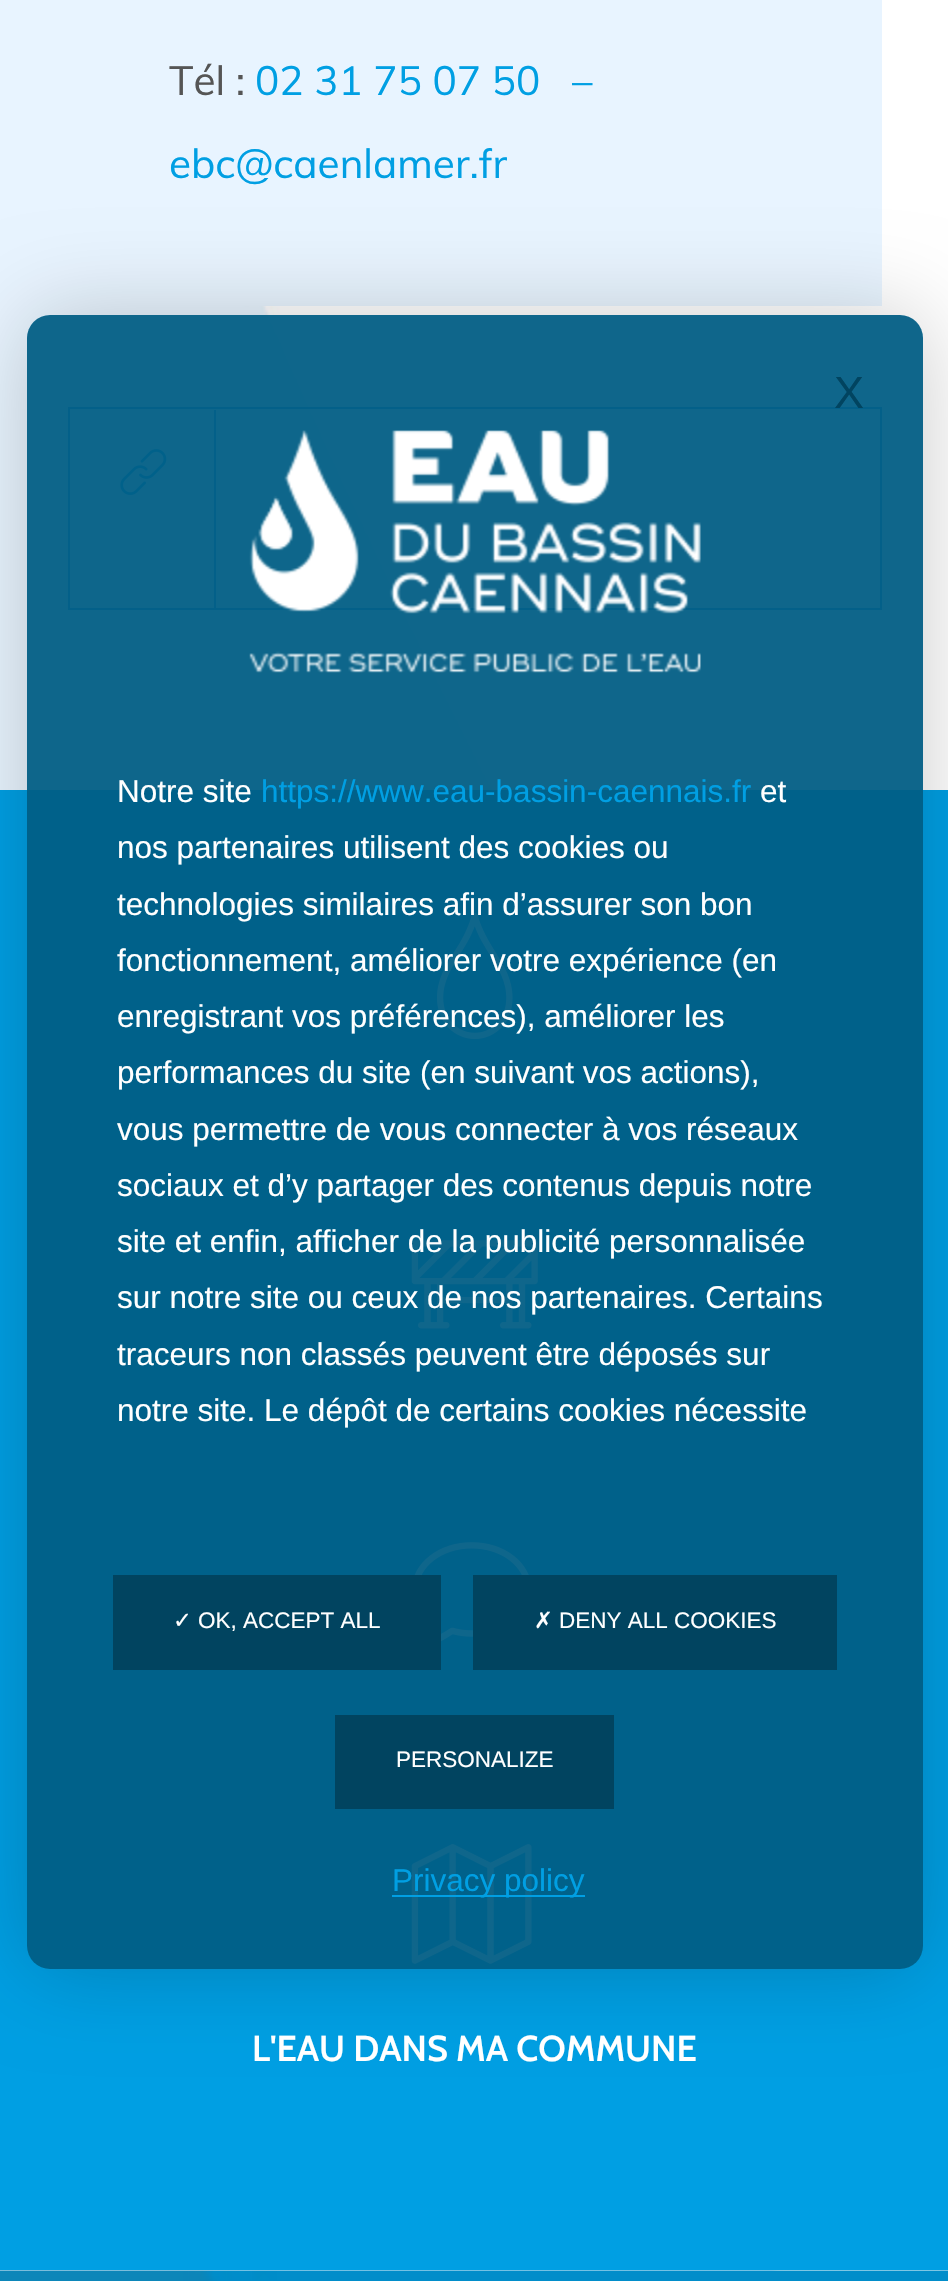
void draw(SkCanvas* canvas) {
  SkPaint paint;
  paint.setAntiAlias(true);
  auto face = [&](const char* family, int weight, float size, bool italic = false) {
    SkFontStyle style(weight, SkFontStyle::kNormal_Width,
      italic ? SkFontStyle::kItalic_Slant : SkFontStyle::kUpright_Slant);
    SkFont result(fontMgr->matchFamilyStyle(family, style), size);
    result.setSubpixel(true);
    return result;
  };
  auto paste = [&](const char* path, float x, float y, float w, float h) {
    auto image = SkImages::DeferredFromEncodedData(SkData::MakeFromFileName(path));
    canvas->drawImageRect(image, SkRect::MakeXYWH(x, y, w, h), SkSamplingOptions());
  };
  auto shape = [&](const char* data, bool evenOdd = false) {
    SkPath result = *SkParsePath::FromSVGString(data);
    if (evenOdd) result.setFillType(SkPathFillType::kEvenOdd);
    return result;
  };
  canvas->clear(0xffffffff);
  paste("img/1.png", 0, 0, 948, 2271);
  paint.setColor(0xffe8f4ff);
  canvas->drawRect(SkRect::MakeXYWH(134, 0, 748, 306), paint);
  paint.setStroke(true);
  paint.setStrokeWidth(2);
  paint.setColor(0xff2491cf);
  canvas->drawRect(SkRect::MakeXYWH(69, 408, 812, 201), paint);
  paint.setStroke(false);
  canvas->drawRect(SkRect::MakeXYWH(214, 410, 2, 198), paint);
  paste("img/2.png", 120, 449, 47, 46);
  paint.setColor(0xff009fe3);
  canvas->drawRect(SkRect::MakeXYWH(0, 790, 948, 1480), paint);
  paste("img/4.png", 437, 913, 76, 126);
  paste("img/5.png", 411, 1240, 127, 89);
  paste("img/6.png", 414, 1542, 115, 100);
  paste("img/7.png", 411, 1844, 121, 120);
  canvas->save();
  canvas->clipPath(shape("M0 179H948V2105H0ZM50 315H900C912.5 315 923 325.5 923 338V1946C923 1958.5 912.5 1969 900 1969H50C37.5 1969 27 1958.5 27 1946V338C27 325.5 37.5 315 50 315Z", true), true);
  paint.setColor(0x33000000);
  paint.setMaskFilter(SkMaskFilter::MakeBlur(kNormal_SkBlurStyle, 45));
  canvas->drawRoundRect(SkRect::MakeXYWH(27, 315, 896, 1654), 23, 23, paint);
  paint.setMaskFilter(nullptr);
  canvas->restore();
  paint.setColor(0xf0005c84);
  canvas->drawRoundRect(SkRect::MakeXYWH(27, 315, 896, 1654), 23, 23, paint);
  paste("img/3.png", 249, 430, 452, 243);
  {
    const struct { float x, y, w, h; SkColor color; } items[] = {
      {113, 1575, 328, 95, 0xff014460},
      {473, 1575, 364, 95, 0xff014460},
      {335, 1715, 279, 94, 0xff014460},
      {392, 1895, 193, 2, 0xff009fe3},
    };
    for (auto [x, y, w, h, color] : items) {
      paint.setColor(color);
      canvas->drawRect(SkRect::MakeXYWH(x, y, w, h), paint);
    }
  }
  paste("img/8.png", 0, 2270, 948, 11);
  auto f0 = face("Muli", 400, 40.5f);
  paint.setColor(0xff555555);
  canvas->drawString("Tél :", 169, 95, f0, paint);
  paint.setColor(0xff009fe3);
  canvas->drawString("02 31 75 07 50   –", 255, 95, f0, paint);
  canvas->drawString("ebc@caenlamer.fr", 169, 178, f0, paint);
  auto f1 = face("Liberation Sans", 400, 45);
  paint.setColor(0xff014460);
  canvas->drawString("X", 834, 408, f1, paint);
  auto f2 = face("Liberation Sans", 400, 31.5f);
  paint.setColor(0xffffffff);
  canvas->drawString("Notre site", 117, 802, f2, paint);
  paint.setColor(0xff009fe3);
  canvas->drawString("https://www.eau-bassin-caennais.fr", 261, 802, f2, paint);
  paint.setColor(0xffffffff);
  {
    const struct { const char* s; float x, y; } items[] = {
      {"et", 760, 802},
      {"nos partenaires utilisent des cookies ou", 117, 858},
      {"technologies similaires afin d’assurer son bon", 117, 915},
      {"fonctionnement, améliorer votre expérience (en", 117, 971},
      {"enregistrant vos préférences), améliorer les", 117, 1027},
      {"performances du site (en suivant vos actions),", 117, 1083},
      {"vous permettre de vous connecter à vos réseaux", 117, 1140},
      {"sociaux et d’y partager des contenus depuis notre", 117, 1196},
      {"site et enfin, afficher de la publicité personnalisée", 117, 1252},
      {"sur notre site ou ceux de nos partenaires. Certains", 117, 1308},
      {"traceurs non classés peuvent être déposés sur", 117, 1365},
      {"notre site. Le dépôt de certains cookies nécessite", 117, 1421},
    };
    for (auto [s, x, y] : items) {
      canvas->drawString(s, x, y, f2, paint);
    }
  }
  auto f3 = face("DejaVu Sans", 400, 22.5f);
  canvas->drawString("✓", 173, 1628, f3, paint);
  auto f4 = face("Liberation Sans", 400, 22.5f);
  canvas->drawString("OK, ACCEPT ALL", 198, 1628, f4, paint);
  canvas->drawString("✗", 534, 1628, f3, paint);
  canvas->drawString("DENY ALL COOKIES", 559, 1628, f4, paint);
  canvas->drawString("PERSONALIZE", 396, 1767, f4, paint);
  paint.setColor(0xff009fe3);
  canvas->drawString("Privacy policy", 392, 1891, f2, paint);
  auto f5 = face("Cabin", 600, 36);
  paint.setColor(0xffffffff);
  canvas->drawString("L'EAU DANS MA COMMUNE", 252, 2061, f5, paint);
}
